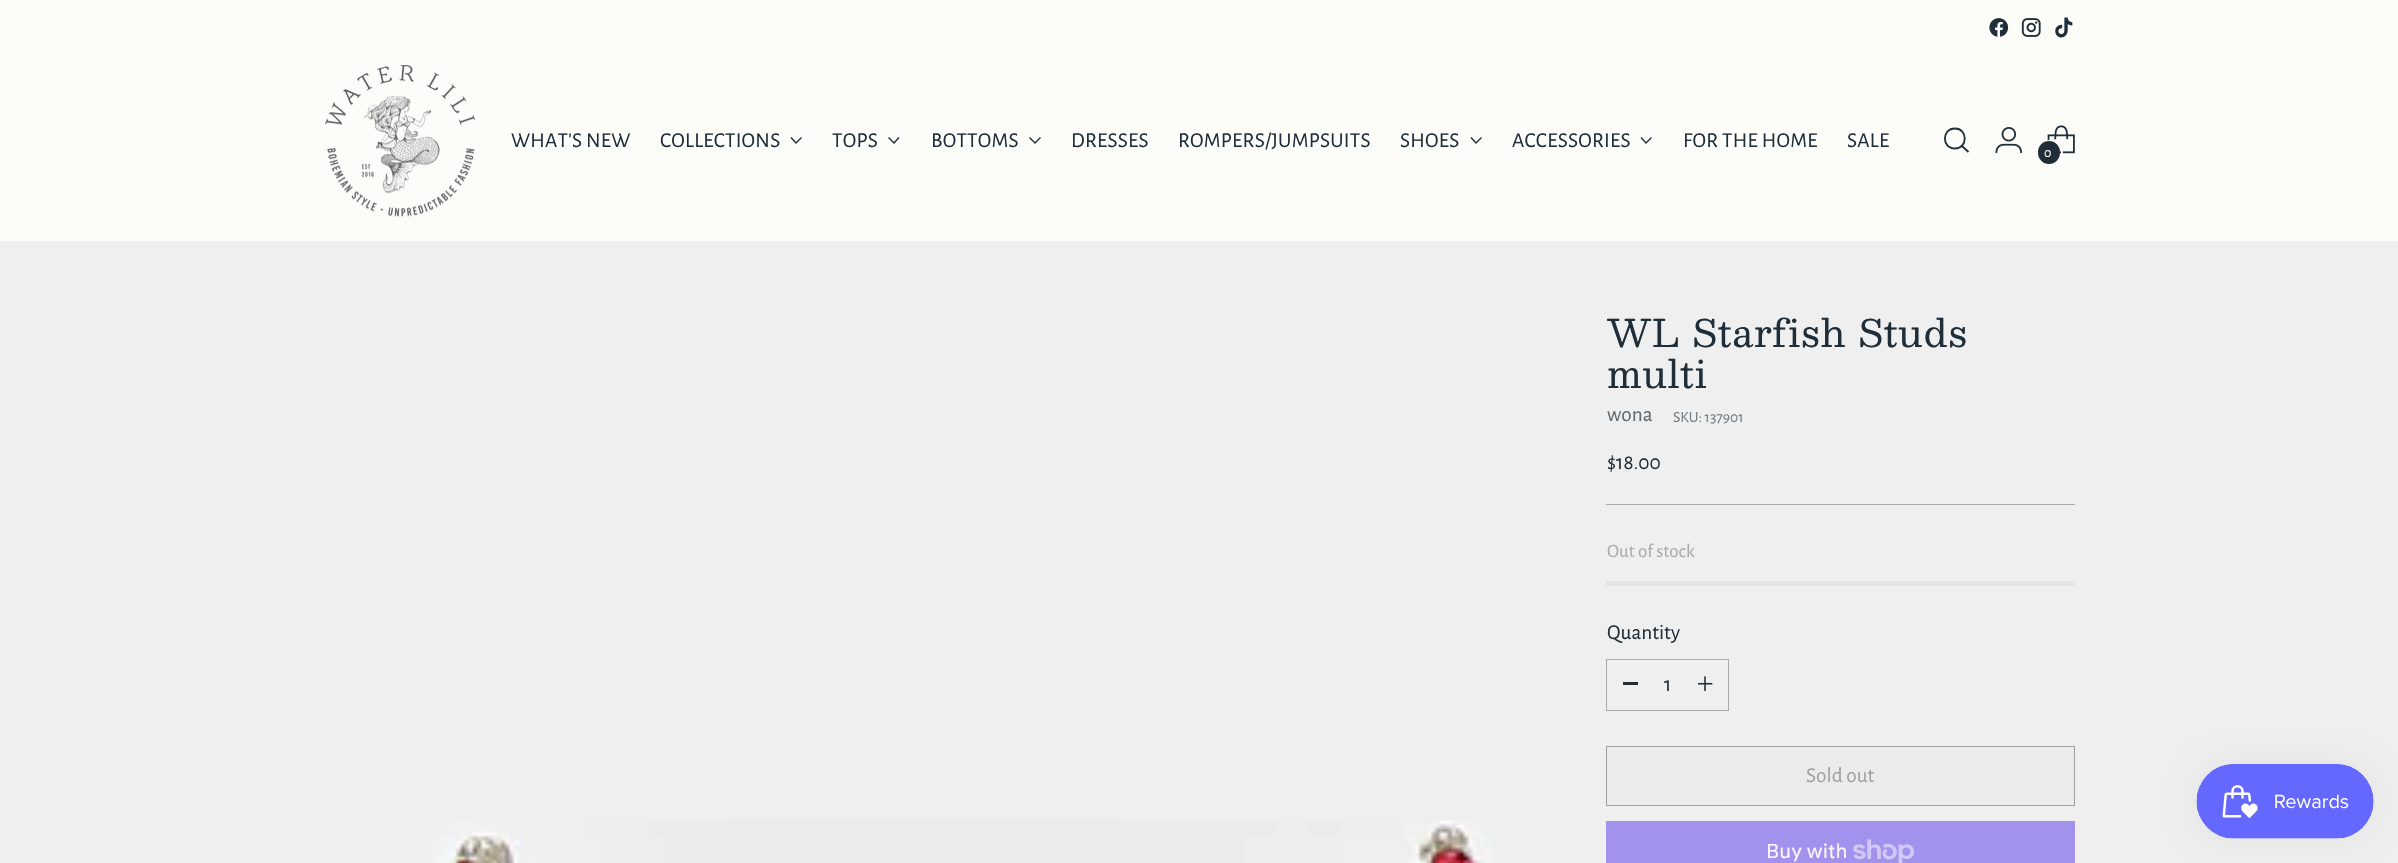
void draw(SkCanvas* canvas) {
  SkPaint paint;
  paint.setAntiAlias(true);
  auto face = [&](const char* family, int weight, float size, bool italic = false) {
    SkFontStyle style(weight, SkFontStyle::kNormal_Width,
      italic ? SkFontStyle::kItalic_Slant : SkFontStyle::kUpright_Slant);
    SkFont result(fontMgr->matchFamilyStyle(family, style), size);
    result.setSubpixel(true);
    return result;
  };
  auto writeSpaced = [&](const char* s, float x, float y, const SkFont& font, const SkPaint& ink, float letter, float word) {
    std::vector<SkGlyphID> glyphs(font.countText(s, strlen(s), SkTextEncoding::kUTF8));
    std::vector<float> xs(glyphs.size());
    font.textToGlyphs(s, strlen(s), SkTextEncoding::kUTF8, glyphs);
    font.getXPos(glyphs, xs, x);
    float extra = 0;
    for (size_t i = 0; i < glyphs.size(); i++) {
      xs[i] += extra;
      extra += letter + word * (glyphs[i] == font.unicharToGlyph(' '));
    }
    canvas->drawTextBlob(SkTextBlob::MakeFromPosHGlyphs(glyphs, xs, y, font), 0, 0, ink);
  };
  auto paste = [&](const char* path, float x, float y, float w, float h) {
    auto image = SkImages::DeferredFromEncodedData(SkData::MakeFromFileName(path));
    canvas->drawImageRect(image, SkRect::MakeXYWH(x, y, w, h), SkSamplingOptions());
  };
  auto shape = [&](const char* data, bool evenOdd = false) {
    SkPath result = *SkParsePath::FromSVGString(data);
    if (evenOdd) result.setFillType(SkPathFillType::kEvenOdd);
    return result;
  };
  canvas->clear(0xffefefef);
  paint.setColor(0xfffcfcf9);
  canvas->drawRect(SkRect::MakeXYWH(0, 0, 2398, 241), paint);
  paste("img/1.png", 1989, 18, 20, 19);
  paste("img/2.png", 2021, 18, 20, 19);
  paste("img/3.png", 2055, 17, 18, 21);
  paste("img/4.png", 325, 65, 150, 152);
  paint.setStroke(true);
  paint.setStrokeWidth(1.4f);
  paint.setColor(0xff1f2e39);
  canvas->drawPath(shape("M791 137.5L796 143L801.5 137.5"), paint);
  canvas->drawPath(shape("M888.5 137.5L894 143L899 137.5"), paint);
  canvas->drawPath(shape("M1029.5 137.5L1035 143L1040.5 137.5"), paint);
  canvas->drawPath(shape("M1471 137.5L1476 143L1481.5 137.5"), paint);
  canvas->drawPath(shape("M1641 137.5L1646 143L1651.5 137.5"), paint);
  paint.setStrokeWidth(1.8f);
  paint.setStrokeCap(SkPaint::kRound_Cap);
  canvas->drawPath(shape("M1955 148.5C1968 148.5 1968 128.5 1955 128.5C1941.5 128.5 1941.5 148.5 1955 148.5Z"), paint);
  paint.setStrokeCap(SkPaint::kButt_Cap);
  canvas->drawPath(shape("M1962 146L1968.5 152"), paint);
  paste("img/5.png", 1995, 127, 28, 26);
  paste("img/6.png", 2047, 125, 28, 29);
  paint.setStrokeWidth(2);
  paint.setColor(0xfffcfcf9);
  canvas->drawRoundRect(SkRect::MakeXYWH(2037, 141, 25, 24), 12, 12, paint);
  paint.setStroke(false);
  paint.setColor(0xff1f2e39);
  canvas->drawRoundRect(SkRect::MakeXYWH(2038, 141, 22, 23), 11, 11, paint);
  paste("img/7.png", 433, 819, 1060, 44);
  paint.setColor(0xffaaaaaa);
  canvas->drawRect(SkRect::MakeXYWH(1606, 504, 469, 1), paint);
  paint.setColor(0xffe5e5e5);
  canvas->drawRect(SkRect::MakeXYWH(1606, 581, 469, 5), paint);
  paint.setStroke(true);
  paint.setStrokeWidth(1);
  paint.setColor(0xffaaaaaa);
  canvas->drawRect(SkRect::MakeXYWH(1606.5f, 659.5f, 122, 51), paint);
  paint.setStroke(false);
  paint.setColor(0xff1f2e39);
  canvas->drawRect(SkRect::MakeXYWH(1623, 682, 15, 3), paint);
  paste("img/8.png", 1698, 676, 15, 15);
  paint.setColor(0xffebebeb);
  canvas->drawRect(SkRect::MakeXYWH(1606.5f, 746.5f, 468, 59), paint);
  paint.setStroke(true);
  paint.setColor(0xff9ca2a6);
  canvas->drawRect(SkRect::MakeXYWH(1606.5f, 746.5f, 468, 59), paint);
  paint.setStroke(false);
  paint.setColor(0xffa291ed);
  canvas->drawRect(SkRect::MakeXYWH(1606, 821, 469, 42), paint);
  paste("img/9.png", 1853, 839, 62, 24);
  paint.setColor(0x0d000000);
  paint.setMaskFilter(SkMaskFilter::MakeBlur(kNormal_SkBlurStyle, 15.5f));
  canvas->drawRoundRect(SkRect::MakeXYWH(2196, 764, 178, 75), 37.5f, 37.5f, paint);
  paint.setMaskFilter(nullptr);
  paste("img/10.png", 2196, 764, 178, 75);
  auto f0 = face("Alegreya Sans", 400, 21.25f);
  paint.setColor(0xff1f2e39);
  {
    const struct { const char* s; float x, y; } items[] = {
      {"WHAT'S NEW", 511, 147},
      {"COLLECTIONS", 660, 147},
      {"TOPS", 832, 147},
      {"BOTTOMS", 931, 147},
      {"DRESSES", 1071, 147},
      {"ROMPERS/JUMPSUITS", 1178, 147},
      {"SHOES", 1400, 147},
      {"ACCESSORIES", 1512, 147},
      {"FOR THE HOME", 1683, 147},
      {"SALE", 1847, 147},
    };
    for (auto [s, x, y] : items) {
      writeSpaced(s, x, y, f0, paint, 0.25f, 0);
    }
  }
  auto f1 = face("Alegreya Sans", 400, 14);
  paint.setColor(0xfff7f7f7);
  canvas->drawString("0", 2044, 157, f1, paint);
  auto f2 = face("Besley", 400, 37.5f);
  paint.setColor(0xff1f2e39);
  writeSpaced("WL Starfish Studs", 1607, 347, f2, paint, 0.75f, 0);
  writeSpaced("multi", 1607, 388, f2, paint, 0.75f, 0);
  paint.setColor(0xff5d6870);
  canvas->drawString("wona", 1607, 421, f0, paint);
  auto f3 = face("Alegreya Sans", 400, 15.5f);
  paint.setColor(0xff727b82);
  canvas->drawString("SKU: 137901", 1673, 422, f3, paint);
  paint.setColor(0xff1f2e39);
  canvas->drawString("$18.00", 1607, 469, f0, paint);
  auto f4 = face("Alegreya Sans", 400, 19);
  paint.setColor(0xffaaaaaa);
  canvas->drawString("Out of stock", 1607, 557, f4, paint);
  paint.setColor(0xff1f2e39);
  canvas->drawString("Quantity", 1607, 639, f0, paint);
  canvas->drawString("1", 1664, 691, f0, paint);
  paint.setColor(0xff9ca2a6);
  canvas->drawString("Sold out", 1806, 782, f0, paint);
  auto f5 = face("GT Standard", 400, 20);
  paint.setColor(0xfff7f7f7);
  canvas->drawString("Buy with", 1766, 858, f5, paint);
}
